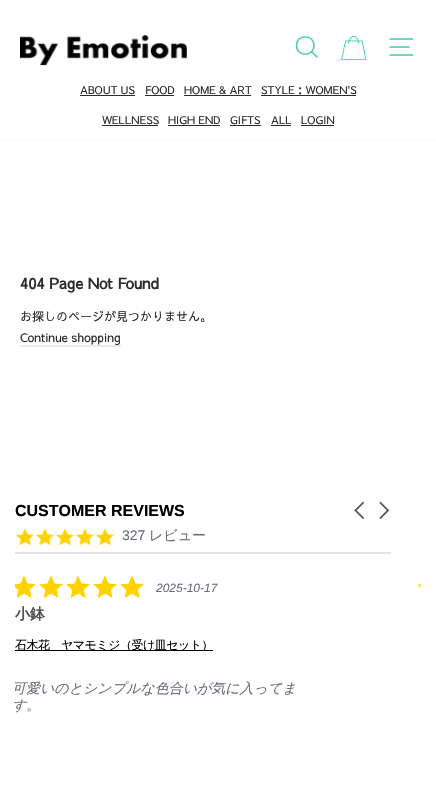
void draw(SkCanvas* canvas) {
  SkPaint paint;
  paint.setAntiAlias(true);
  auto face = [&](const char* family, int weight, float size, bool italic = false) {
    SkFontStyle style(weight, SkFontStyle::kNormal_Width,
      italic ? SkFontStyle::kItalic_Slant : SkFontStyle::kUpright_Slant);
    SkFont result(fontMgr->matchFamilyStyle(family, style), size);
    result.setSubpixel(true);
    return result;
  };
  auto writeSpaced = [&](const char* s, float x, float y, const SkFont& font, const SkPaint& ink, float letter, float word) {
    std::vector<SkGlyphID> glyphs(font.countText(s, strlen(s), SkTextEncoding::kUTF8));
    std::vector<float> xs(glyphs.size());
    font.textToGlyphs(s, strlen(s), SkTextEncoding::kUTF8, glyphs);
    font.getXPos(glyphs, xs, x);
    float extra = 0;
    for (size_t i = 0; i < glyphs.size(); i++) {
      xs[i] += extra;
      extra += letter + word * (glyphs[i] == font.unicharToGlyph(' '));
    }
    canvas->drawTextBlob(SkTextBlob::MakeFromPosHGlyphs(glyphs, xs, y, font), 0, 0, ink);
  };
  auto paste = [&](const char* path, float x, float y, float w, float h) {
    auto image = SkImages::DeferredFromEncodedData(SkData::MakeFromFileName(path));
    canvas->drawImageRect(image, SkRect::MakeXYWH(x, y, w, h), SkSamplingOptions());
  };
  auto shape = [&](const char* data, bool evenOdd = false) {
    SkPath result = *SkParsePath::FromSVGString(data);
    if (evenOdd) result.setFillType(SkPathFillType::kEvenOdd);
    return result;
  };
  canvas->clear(0xffffffff);
  paint.setColor(0xfffff7f7);
  canvas->drawRect(SkRect::MakeXYWH(0, 139, 436, 1), paint);
  paste("img/1.png", 20, 35, 167, 31);
  paint.setStroke(true);
  paint.setStrokeWidth(1.4f);
  paint.setColor(0xff3dccb5);
  canvas->drawPath(shape("M314 45.5C314 57 296.5 57 296.5 45.5C296.5 34 314 34 314 45.5ZM317.5 57.5L311.5 51.5"), paint);
  paste("img/2.png", 341, 36, 26, 24);
  canvas->drawPath(shape("M389.5 39H413M389.5 47H409.5M389.5 55H413"), paint);
  paint.setStroke(false);
  {
    const struct { float x, y, w, h; SkColor color; } items[] = {
      {80, 95, 55, 1, 0xff2d2c2c},
      {145, 95, 29, 1, 0xff2d2c2c},
      {184, 95, 67, 1, 0xff2d2c2c},
      {261, 95, 95, 1, 0xff2d2c2c},
      {102, 125, 56, 1, 0xff2d2c2c},
      {168, 125, 52, 1, 0xff2d2c2c},
      {230, 125, 31, 1, 0xff2d2c2c},
      {271, 125, 20, 1, 0xff2d2c2c},
      {301, 125, 33, 1, 0xff2d2c2c},
      {20, 345, 101, 2, 0xffeaeaea},
      {15, 552, 376, 2, 0xffe3e3e3},
    };
    for (auto [x, y, w, h, color] : items) {
      paint.setColor(color);
      canvas->drawRect(SkRect::MakeXYWH(x, y, w, h), paint);
    }
  }
  paste("img/3.png", 354, 501, 11, 18);
  paste("img/4.png", 379, 501, 11, 19);
  paste("img/5.png", 16, 528, 18, 18);
  paste("img/5.png", 36, 528, 18, 18);
  paste("img/5.png", 56, 528, 18, 18);
  paste("img/5.png", 76, 528, 18, 18);
  paste("img/5.png", 96, 528, 18, 18);
  paste("img/6.png", 15, 575, 22, 23);
  paste("img/7.png", 39, 575, 25, 23);
  paste("img/7.png", 66, 575, 25, 23);
  paste("img/7.png", 93, 575, 25, 23);
  paste("img/7.png", 120, 575, 25, 23);
  paint.setColor(0xff000000);
  canvas->drawRect(SkRect::MakeXYWH(15, 650, 198, 1), paint);
  paint.setColor(0xffffe35e);
  canvas->drawRect(SkRect::MakeXYWH(418, 584, 3, 3), paint);
  auto f0 = face("Sawarabi Gothic", 400, 10.75f);
  paint.setColor(0xff2d2c2c);
  {
    const struct { const char* s; float x, y; } items[] = {
      {"ABOUT US", 80, 94},
      {"FOOD", 145, 94},
      {"HOME & ART", 184, 94},
      {"STYLE：WOMEN'S", 261, 94},
      {"WELLNESS", 102, 124},
      {"HIGH END", 168, 124},
      {"GIFTS", 230, 124},
      {"ALL", 271, 124},
      {"LOGIN", 301, 124},
    };
    for (auto [s, x, y] : items) {
      canvas->drawString(s, x, y, f0, paint);
    }
  }
  auto f1 = face("Sawarabi Gothic", 700, 15);
  canvas->drawString("404 Page Not Found", 20, 289, f1, paint);
  auto f2 = face("Sawarabi Gothic", 400, 12);
  canvas->drawString("お探しのページが見つかりません。", 20, 321, f2, paint);
  canvas->drawString("Continue shopping", 20, 342, f2, paint);
  auto f3 = face("Liberation Sans", 700, 16);
  paint.setColor(0xff000000);
  canvas->drawString("CUSTOMER REVIEWS", 15, 516, f3, paint);
  auto f4 = face("Liberation Sans", 400, 14);
  paint.setColor(0xff6a6c77);
  canvas->drawString("327", 122, 540, f4, paint);
  auto f5 = face("WenQuanYi Zen Hei", 500, 14);
  canvas->drawString("レビュー", 149, 540, f5, paint);
  auto f6 = face("Liberation Sans", 400, 12, true);
  canvas->drawString("2025-10-17", 156, 592, f6, paint);
  auto f7 = face("WenQuanYi Zen Hei", 700, 15);
  paint.setColor(0xff4f4f4f);
  canvas->drawString("小鉢", 15, 619, f7, paint);
  auto f8 = face("WenQuanYi Zen Hei", 500, 12);
  paint.setColor(0xff000000);
  writeSpaced("石木花　ヤマモミジ（受け皿セット）", 15, 649, f8, paint, -0.5f, 0);
  canvas->save();
  canvas->clipRect(SkRect::MakeXYWH(15, 559, 406, 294));
  auto f9 = face("WenQuanYi Zen Hei", 500, 14, true);
  paint.setColor(0xff6a6c77);
  canvas->drawString("可愛いのとシンプルな色合いが気に入ってま", 12, 693, f9, paint);
  canvas->restore();
  canvas->drawString("す。", 12, 710, f9, paint);
}
